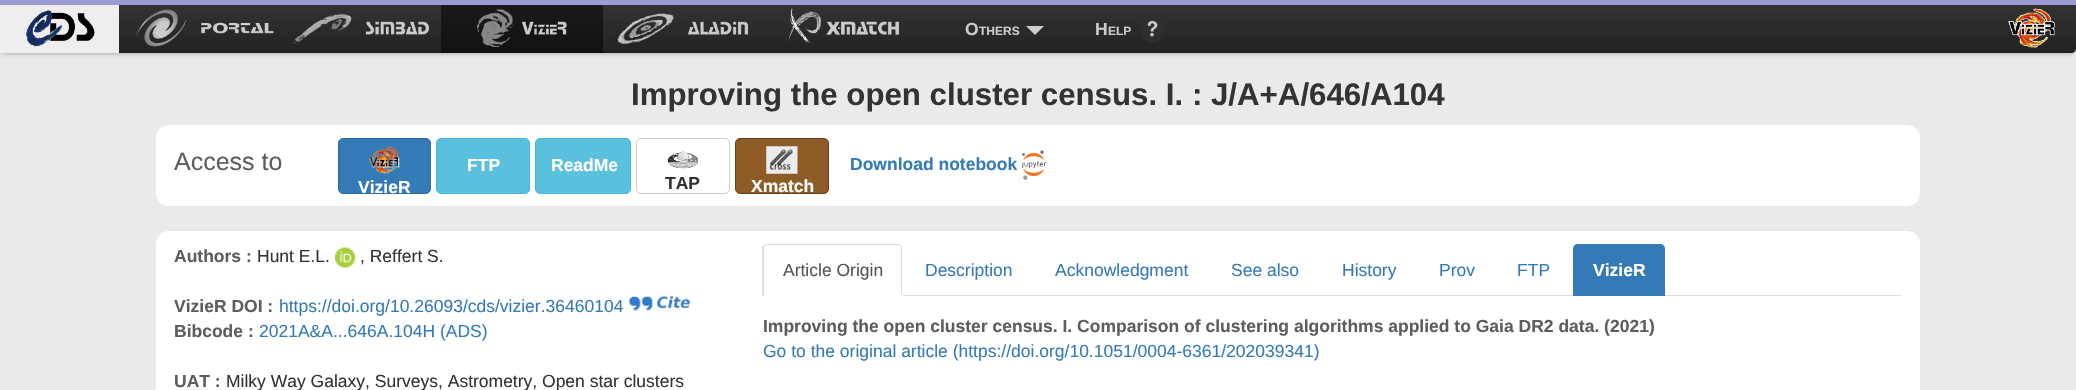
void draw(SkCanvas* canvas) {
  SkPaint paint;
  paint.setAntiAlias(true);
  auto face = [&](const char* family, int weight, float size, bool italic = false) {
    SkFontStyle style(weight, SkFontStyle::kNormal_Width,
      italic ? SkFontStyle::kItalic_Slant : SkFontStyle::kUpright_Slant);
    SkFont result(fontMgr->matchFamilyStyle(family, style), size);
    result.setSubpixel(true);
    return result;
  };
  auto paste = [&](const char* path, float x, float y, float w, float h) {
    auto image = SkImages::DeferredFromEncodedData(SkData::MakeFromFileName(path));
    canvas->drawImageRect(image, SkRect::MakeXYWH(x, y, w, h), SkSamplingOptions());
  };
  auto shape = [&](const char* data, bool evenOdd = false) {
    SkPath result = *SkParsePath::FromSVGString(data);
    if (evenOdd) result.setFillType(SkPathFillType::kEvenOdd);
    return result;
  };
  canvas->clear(0xffeaeaea);
  paint.setColor(0x40000000);
  paint.setMaskFilter(SkMaskFilter::MakeBlur(kNormal_SkBlurStyle, 2));
  canvas->drawRoundRect(SkRect::MakeXYWH(0, 1, 2076, 53), 5, 5, paint);
  paint.setMaskFilter(nullptr);
  {
    const SkColor colors[] = {0xff333333, 0xff222222};
    const float stops[] = {0, 1};
    const SkPoint ends[] = {{1038, 5}, {1038, 53}};
    paint.setShader(SkGradientShader::MakeLinear(ends, colors, stops, 2, SkTileMode::kClamp));
    paint.setAlpha(255);
  }
  canvas->drawPath(shape("M0 5H2076V48C2076 51 2074 53 2071 53H5C2 53 0 51 0 48Z"), paint);
  paint.setShader(nullptr);
  paint.setColor(0x1a000000);
  canvas->drawPath(shape("M0 46V48C0 51 2 53 5 53H2071C2074 53 2076 51 2076 48V46C2076 49 2074 51 2071 51H5C2 51 0 49 0 46Z"), paint);
  paint.setColor(0xff9c9bd5);
  canvas->drawRect(SkRect::MakeXYWH(0, 0, 2076, 5), paint);
  paint.setColor(0xffeeeeee);
  canvas->drawRect(SkRect::MakeXYWH(0, 5, 119, 48), paint);
  paste("img/1.png", 26, 10, 69, 37);
  paste("img/2.png", 136, 9, 51, 38);
  paste("img/3.png", 201, 22, 73, 12);
  paste("img/4.png", 293, 13, 59, 31);
  paste("img/5.png", 365, 21, 65, 14);
  paint.setColor(0x80000000);
  canvas->drawRect(SkRect::MakeXYWH(441, 5, 162, 48), paint);
  paste("img/6.png", 477, 9, 36, 39);
  paste("img/7.png", 521, 21, 46, 14);
  paste("img/8.png", 617, 13, 57, 31);
  paste("img/9.png", 687, 21, 62, 14);
  paste("img/10.png", 788, 8, 33, 35);
  paste("img/11.png", 826, 21, 74, 14);
  paint.setColor(0xffcccccc);
  canvas->drawPath(shape("M1026 26H1044L1035 35Z"), paint);
  paste("img/12.png", 1141, 20, 23, 22);
  paste("img/13.png", 2008, 8, 47, 40);
  paint.setColor(0xffffffff);
  canvas->drawRoundRect(SkRect::MakeXYWH(156, 125, 1764, 81), 13, 13, paint);
  paint.setColor(0xff5bc0de);
  canvas->drawRoundRect(SkRect::MakeXYWH(436.5f, 138.5f, 93, 55), 4.5f, 4.5f, paint);
  paint.setStroke(true);
  paint.setStrokeWidth(1);
  paint.setColor(0xff46b8da);
  canvas->drawRoundRect(SkRect::MakeXYWH(436.5f, 138.5f, 93, 55), 4.5f, 4.5f, paint);
  paint.setStroke(false);
  paint.setColor(0xff5bc0de);
  canvas->drawRoundRect(SkRect::MakeXYWH(535.5f, 138.5f, 95, 55), 4.5f, 4.5f, paint);
  paint.setStroke(true);
  paint.setColor(0xff46b8da);
  canvas->drawRoundRect(SkRect::MakeXYWH(535.5f, 138.5f, 95, 55), 4.5f, 4.5f, paint);
  paste("img/14.png", 1021, 150, 26, 30);
  paint.setStroke(false);
  paint.setColor(0xff337ab7);
  canvas->drawRoundRect(SkRect::MakeXYWH(338.5f, 138.5f, 92, 55), 4.5f, 4.5f, paint);
  paint.setStroke(true);
  paint.setColor(0xff2e6da4);
  canvas->drawRoundRect(SkRect::MakeXYWH(338.5f, 138.5f, 92, 55), 4.5f, 4.5f, paint);
  paste("img/15.png", 368, 146, 32, 28);
  paint.setColor(0xffcccccc);
  canvas->drawRoundRect(SkRect::MakeXYWH(636.5f, 138.5f, 93, 55), 4.5f, 4.5f, paint);
  paste("img/16.png", 667, 151, 31, 18);
  paint.setStroke(false);
  paint.setColor(0xff8c5b26);
  canvas->drawRoundRect(SkRect::MakeXYWH(735.5f, 138.5f, 93, 55), 4.5f, 4.5f, paint);
  paint.setStroke(true);
  paint.setColor(0xff64411b);
  canvas->drawRoundRect(SkRect::MakeXYWH(735.5f, 138.5f, 93, 55), 4.5f, 4.5f, paint);
  paste("img/17.png", 766, 146, 32, 28);
  paint.setStroke(false);
  paint.setColor(0xffffffff);
  canvas->drawRoundRect(SkRect::MakeXYWH(156, 231, 1764, 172), 13, 13, paint);
  paste("img/18.png", 335, 247, 20, 21);
  paste("img/19.png", 629, 295, 61, 16);
  paint.setColor(0xffdddddd);
  canvas->drawRect(SkRect::MakeXYWH(903, 295, 998, 1), paint);
  canvas->drawPath(shape("M768 244L764 245L765 246C766 245 767 245 768 245H898L900 246L901 245C900 245 899 244 898 244Z"), paint);
  canvas->drawPath(shape("M902 296V249C902 248 902 246 901 245L900 246L901 249V295Z"), paint);
  canvas->drawPath(shape("M762 247L764 245L765 246C764 247 764 248 764 249V295L762 296Z"), paint);
  paint.setColor(0xff337ab7);
  canvas->drawPath(shape("M1578 244H1660C1663 244 1665 246 1665 249V296H1573V249C1573 246 1575 244 1578 244Z"), paint);
  auto f0 = face("Liberation Sans", 700, 17.5f);
  paint.setColor(0xffcccccc);
  canvas->drawString("O", 965, 35, f0, paint);
  auto f1 = face("Liberation Sans", 700, 12);
  canvas->drawString("THERS", 979, 35, f1, paint);
  canvas->drawString("H", 1095, 35, f0, paint);
  canvas->drawString("ELP", 1108, 35, f1, paint);
  auto f2 = face("Liberation Sans", 700, 31.25f);
  paint.setColor(0xff333333);
  canvas->drawString("Improving the open cluster census. I. : J/A+A/646/A104", 631, 105, f2, paint);
  auto f3 = face("Liberation Sans", 400, 25);
  paint.setColor(0xff5d5d5d);
  canvas->drawString("Access to", 174, 170, f3, paint);
  paint.setColor(0xffffffff);
  canvas->drawString("FTP", 467, 171, f0, paint);
  canvas->drawString("ReadMe", 551, 171, f0, paint);
  paint.setColor(0xff337ab7);
  canvas->drawString("Download notebook", 850, 170, f0, paint);
  paint.setColor(0xffffffff);
  canvas->drawString("VizieR", 358, 193, f0, paint);
  paint.setColor(0xff333333);
  canvas->drawString("TAP", 665, 189, f0, paint);
  paint.setColor(0xffffffff);
  canvas->drawString("Xmatch", 751, 192, f0, paint);
  paint.setColor(0xff5d5d5d);
  canvas->drawString("Authors :", 174, 262, f0, paint);
  auto f4 = face("Liberation Sans", 400, 17.5f);
  paint.setColor(0xff333333);
  canvas->drawString("Hunt E.L.", 257, 262, f4, paint);
  canvas->drawString(", Reffert S.", 360, 262, f4, paint);
  paint.setColor(0xff5d5d5d);
  canvas->drawString("VizieR DOI :", 174, 312, f0, paint);
  paint.setColor(0xff337ab7);
  canvas->drawString("https://doi.org/10.26093/cds/vizier.36460104", 279, 312, f4, paint);
  paint.setColor(0xff5d5d5d);
  canvas->drawString("Bibcode :", 174, 337, f0, paint);
  paint.setColor(0xff337ab7);
  canvas->drawString("2021A&A...646A.104H (ADS)", 259, 337, f4, paint);
  paint.setColor(0xff5d5d5d);
  canvas->drawString("UAT :", 174, 387, f0, paint);
  paint.setColor(0xff333333);
  canvas->drawString("Milky Way Galaxy, Surveys, Astrometry, Open star clusters", 226, 387, f4, paint);
  paint.setColor(0xff555555);
  canvas->drawString("Article Origin", 783, 276, f4, paint);
  paint.setColor(0xff337ab7);
  {
    const struct { const char* s; float x, y; } items[] = {
      {"Description", 925, 276},
      {"Acknowledgment", 1055, 276},
      {"See also", 1231, 276},
      {"History", 1342, 276},
      {"Prov", 1439, 276},
      {"FTP", 1517, 276},
    };
    for (auto [s, x, y] : items) {
      canvas->drawString(s, x, y, f4, paint);
    }
  }
  paint.setColor(0xffffffff);
  canvas->drawString("VizieR", 1593, 276, f0, paint);
  paint.setColor(0xff5d5d5d);
  canvas->drawString("Improving the open cluster census. I. Comparison of clustering algorithms applied to Gaia DR2 data. (2021)", 763, 332, f0, paint);
  paint.setColor(0xff337ab7);
  canvas->drawString("Go to the original article (https://doi.org/10.1051/0004-6361/202039341)", 763, 357, f4, paint);
}
